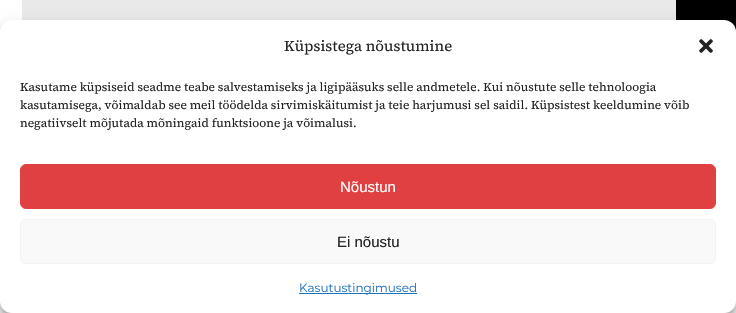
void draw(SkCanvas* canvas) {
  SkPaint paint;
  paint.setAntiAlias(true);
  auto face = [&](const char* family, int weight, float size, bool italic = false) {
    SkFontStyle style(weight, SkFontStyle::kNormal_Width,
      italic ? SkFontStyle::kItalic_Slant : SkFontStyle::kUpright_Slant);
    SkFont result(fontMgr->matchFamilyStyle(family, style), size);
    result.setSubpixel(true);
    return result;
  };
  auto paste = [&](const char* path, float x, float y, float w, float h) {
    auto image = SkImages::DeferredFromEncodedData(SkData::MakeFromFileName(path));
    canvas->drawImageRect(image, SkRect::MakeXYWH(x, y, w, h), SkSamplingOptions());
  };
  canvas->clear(0xffffffff);
  paint.setColor(0xffe9e9e9);
  canvas->drawRect(SkRect::MakeXYWH(22, 0, 654, 20), paint);
  paint.setColor(0xff000000);
  canvas->drawRect(SkRect::MakeXYWH(676, 0, 60, 32), paint);
  paint.setColor(0x3b000000);
  paint.setMaskFilter(SkMaskFilter::MakeBlur(kNormal_SkBlurStyle, 3));
  canvas->drawRoundRect(SkRect::MakeXYWH(0, 26, 736, 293), 12, 12, paint);
  paint.setMaskFilter(nullptr);
  paint.setColor(0x30000000);
  paint.setMaskFilter(SkMaskFilter::MakeBlur(kNormal_SkBlurStyle, 10));
  canvas->drawRoundRect(SkRect::MakeXYWH(0, 30, 736, 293), 12, 12, paint);
  paint.setMaskFilter(nullptr);
  paint.setColor(0xffffffff);
  canvas->drawRoundRect(SkRect::MakeXYWH(0, 20, 736, 293), 12, 12, paint);
  paste("img/1.png", 699, 39, 14, 14);
  paint.setColor(0xffe04042);
  canvas->drawRoundRect(SkRect::MakeXYWH(20.5f, 164.5f, 695, 44), 5.5f, 5.5f, paint);
  paint.setStroke(true);
  paint.setStrokeWidth(1);
  canvas->drawRoundRect(SkRect::MakeXYWH(20.5f, 164.5f, 695, 44), 5.5f, 5.5f, paint);
  paint.setStroke(false);
  paint.setColor(0xfff9f9f9);
  canvas->drawRoundRect(SkRect::MakeXYWH(20.5f, 219.5f, 695, 44), 5.5f, 5.5f, paint);
  paint.setStroke(true);
  paint.setColor(0xfff2f2f2);
  canvas->drawRoundRect(SkRect::MakeXYWH(20.5f, 219.5f, 695, 44), 5.5f, 5.5f, paint);
  paint.setStroke(false);
  paint.setColor(0xff1e73be);
  canvas->drawRect(SkRect::MakeXYWH(299, 293, 118, 1), paint);
  auto f0 = face("Source Serif 4", 400, 15);
  paint.setColor(0xff222222);
  canvas->drawString("Küpsistega nõustumine", 284, 51, f0, paint);
  auto f1 = face("Source Serif 4", 400, 12);
  {
    const struct { const char* s; float x, y; } items[] = {
      {"Kasutame küpsiseid seadme teabe salvestamiseks ja ligipääsuks selle andmetele. Kui nõustute selle tehnoloogia", 20, 91},
      {"kasutamisega, võimaldab see meil töödelda sirvimiskäitumist ja teie harjumusi sel saidil. Küpsistest keeldumine võib", 20, 109},
      {"negatiivselt mõjutada mõningaid funktsioone ja võimalusi.", 20, 127},
    };
    for (auto [s, x, y] : items) {
      canvas->drawString(s, x, y, f1, paint);
    }
  }
  auto f2 = face("Liberation Sans", 400, 15);
  paint.setColor(0xffffffff);
  canvas->drawString("Nõustun", 340, 192, f2, paint);
  paint.setColor(0xff222222);
  canvas->drawString("Ei nõustu", 337, 247, f2, paint);
  auto f3 = face("Montserrat", 400, 12);
  paint.setColor(0xff1e73be);
  canvas->drawString("Kasutustingimused", 299, 292, f3, paint);
}
